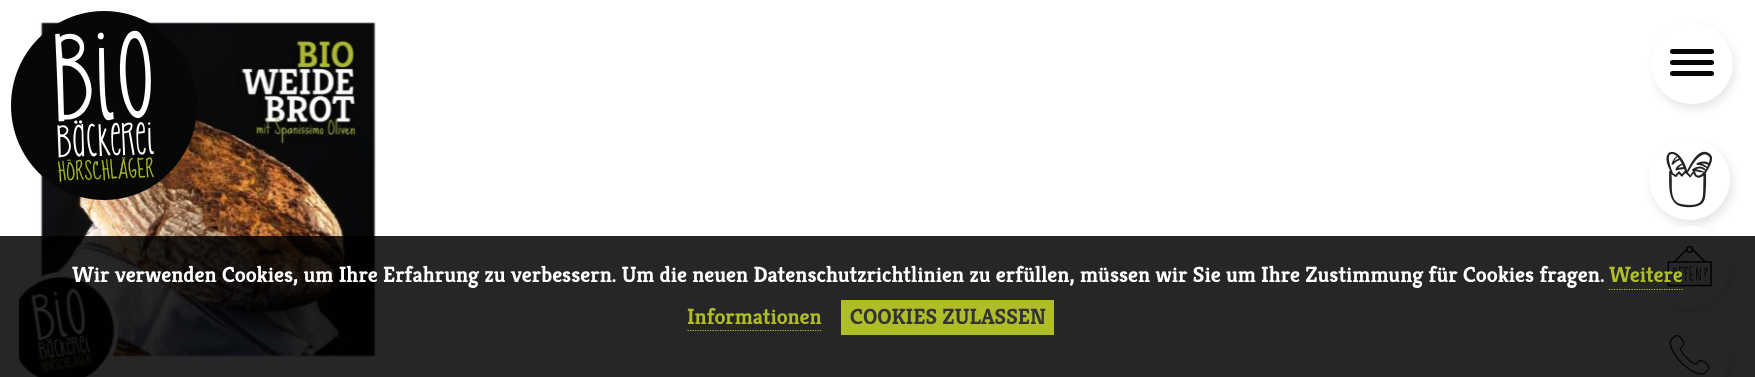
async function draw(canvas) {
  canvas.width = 1755
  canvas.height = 377
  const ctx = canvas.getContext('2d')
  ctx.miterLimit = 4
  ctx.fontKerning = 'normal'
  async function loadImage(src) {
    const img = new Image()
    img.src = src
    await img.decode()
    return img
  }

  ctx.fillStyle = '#fff'
  ctx.fillRect(0, 0, 1755, 377)
  ctx.drawImage(await loadImage('image1.png'), 19, 21, 357, 356)
  ctx.drawImage(await loadImage('image0.png'), 11, 11, 186, 189)
  ctx.fillStyle = '#0505051a'
  ctx.filter = 'blur(4px)'
  ctx.beginPath()
  ctx.roundRect(1654, 28, 81, 81, 40.5)
  ctx.fill()
  ctx.filter = 'none'
  ctx.fillStyle = '#fff'
  ctx.beginPath()
  ctx.roundRect(1651, 23, 82, 81, 40.5)
  ctx.fill()
  ctx.fillStyle = '#050505'
  ctx.beginPath()
  ctx.roundRect(1670, 60, 44, 5, 2.5)
  ctx.fill()
  ctx.beginPath()
  ctx.roundRect(1670, 49, 44, 5, 2.5)
  ctx.fill()
  ctx.beginPath()
  ctx.roundRect(1670, 71, 44, 5, 2.5)
  ctx.fill()
  ctx.fillStyle = '#0505051a'
  ctx.filter = 'blur(4px)'
  ctx.beginPath()
  ctx.roundRect(1651, 144, 82, 81, 40.5)
  ctx.fill()
  ctx.filter = 'none'
  ctx.fillStyle = '#fff'
  ctx.beginPath()
  ctx.arc(1689.5, 179.5, 40.5, 0, 2 * Math.PI)
  ctx.fill()
  ctx.drawImage(await loadImage('image2.png'), 1666, 151, 46, 57)
  ctx.fillStyle = '#0505051a'
  ctx.filter = 'blur(4px)'
  ctx.beginPath()
  ctx.roundRect(1651, 231, 82, 82, 41)
  ctx.fill()
  ctx.filter = 'none'
  ctx.fillStyle = '#fff'
  ctx.beginPath()
  ctx.roundRect(1649, 226, 81, 82, 40.5)
  ctx.fill()
  ctx.drawImage(await loadImage('image3.png'), 1667, 245, 45, 42)
  ctx.fillStyle = '#0505051a'
  ctx.filter = 'blur(4px)'
  ctx.beginPath()
  ctx.roundRect(1651, 319, 82, 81, 40.5)
  ctx.fill()
  ctx.filter = 'none'
  ctx.fillStyle = '#fff'
  ctx.beginPath()
  ctx.arc(1689.5, 354.5, 40.5, 0, 2 * Math.PI)
  ctx.fill()
  ctx.drawImage(await loadImage('image4.png'), 1669, 335, 41, 40)
  ctx.fillStyle = '#000000d9'
  ctx.fillRect(0, 236, 1755, 141)
  ctx.font = 'bold 22px Kreon'
  ctx.fillStyle = '#fff'
  ctx.fillText('Wir verwenden Cookies, um Ihre Erfahrung zu verbessern. Um die neuen Datenschutzrichtlinien zu erfüllen, müssen wir Sie um Ihre Zustimmung für Cookies fragen.', 72, 282)
  ctx.fillStyle = '#afbd29'
  ctx.fillText('Weitere', 1609, 282)
  ctx.beginPath()
  ctx.moveTo(1609, 289.5)
  ctx.lineTo(1684, 289.5)
  ctx.strokeStyle = '#afbd29'
  ctx.lineWidth = 1.2
  ctx.setLineDash([1.25, 1.25])
  ctx.stroke()
  ctx.fillText('Informationen', 687, 324)
  ctx.beginPath()
  ctx.moveTo(687.5, 330.5)
  ctx.lineTo(822.5, 330.5)
  ctx.stroke()
  ctx.fillRect(841, 300, 213, 35)
  ctx.fillStyle = '#333'
  ctx.fillText('COOKIES ZULASSEN', 850, 324)
}

draw(document.querySelector('canvas'))
